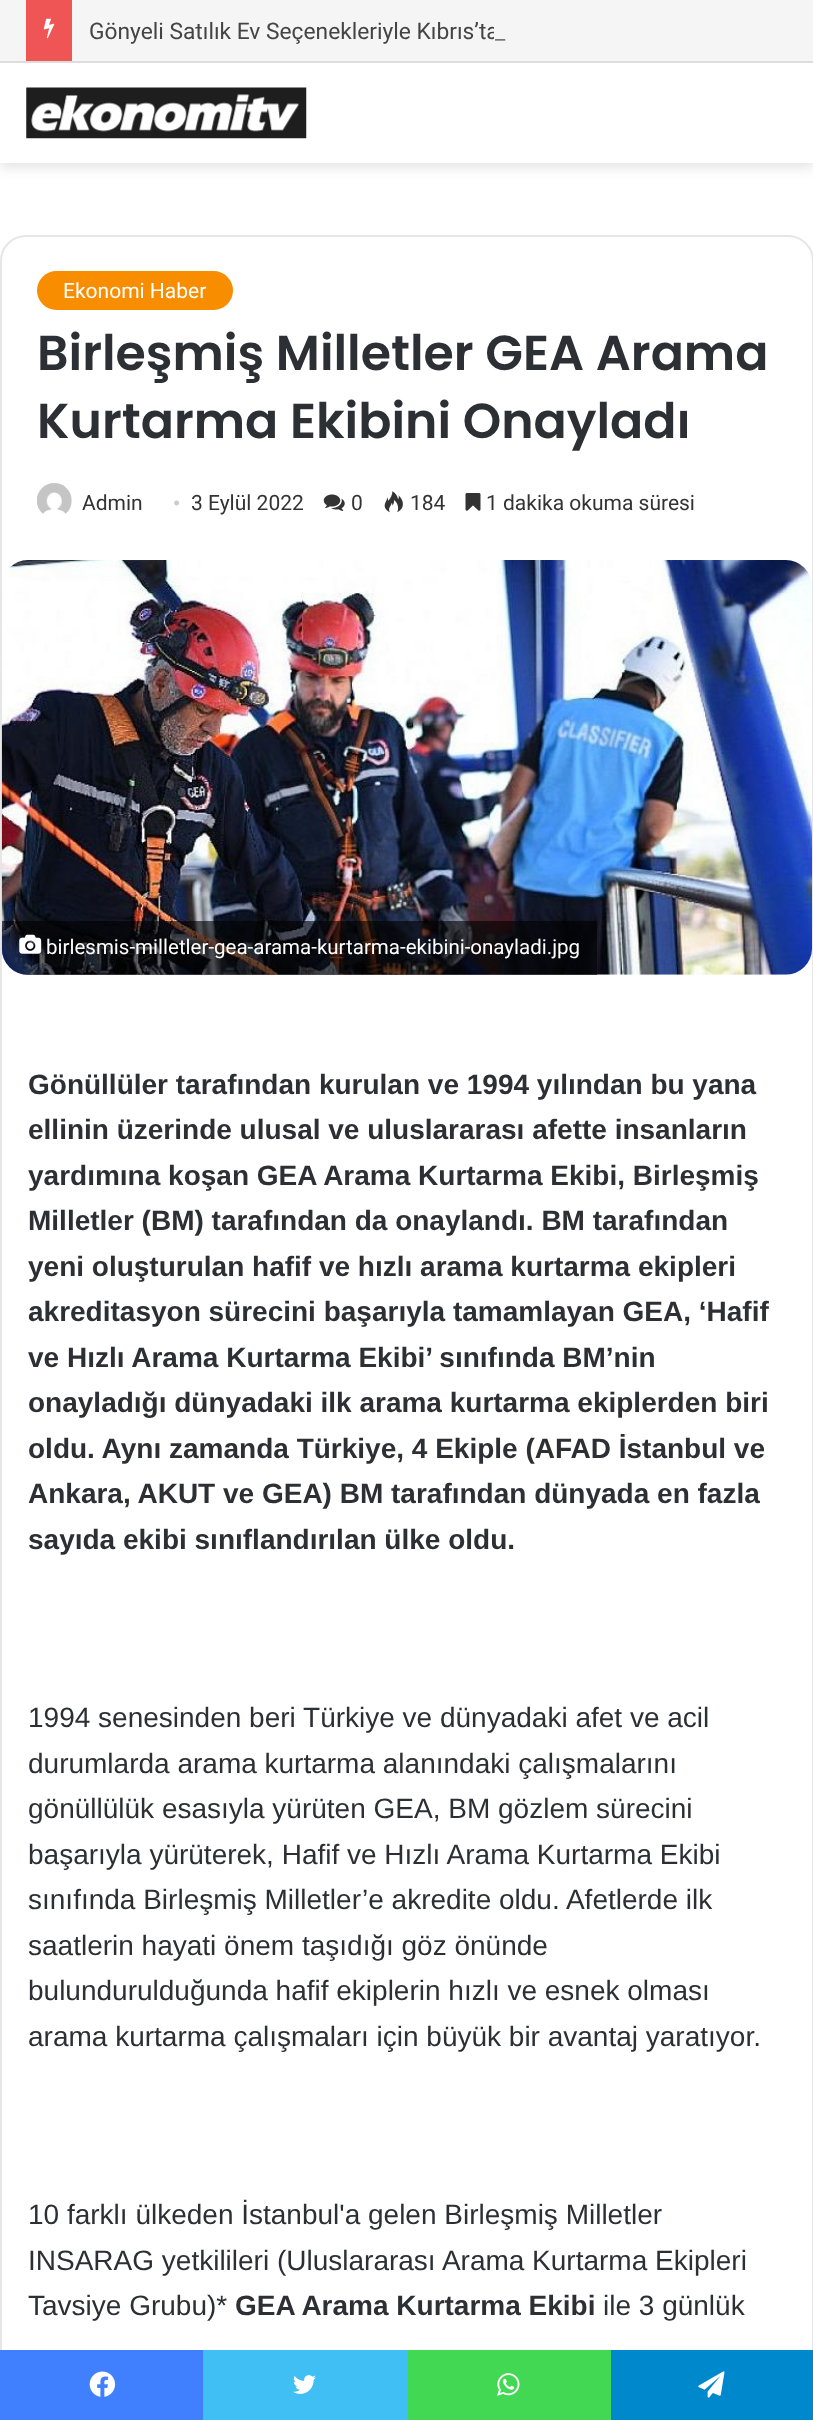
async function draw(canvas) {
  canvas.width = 813
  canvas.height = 2420
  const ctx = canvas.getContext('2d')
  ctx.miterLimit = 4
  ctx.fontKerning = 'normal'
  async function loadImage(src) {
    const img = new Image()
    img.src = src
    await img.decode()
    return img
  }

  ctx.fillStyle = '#fff'
  ctx.fillRect(0, 0, 813, 2420)
  ctx.fillStyle = '#0000001a'
  ctx.filter = 'blur(6px)'
  ctx.beginPath()
  ctx.rect(0, 68, 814, 100)
  ctx.fill()
  ctx.filter = 'none'
  ctx.fillStyle = '#f5f5f5'
  ctx.fillRect(0, 0, 813, 61)
  ctx.fillStyle = '#ddd'
  ctx.fillRect(0, 61, 813, 2)
  ctx.fillStyle = '#f05555'
  ctx.fillRect(26, 0, 46, 61)
  ctx.drawImage(await loadImage('image0.png'), 43, 18, 12, 21)
  ctx.font = '22.75px Roboto'
  ctx.fillStyle = '#444'
  ctx.fillText('Gönyeli Satılık Ev Seçenekleriyle Kıbrıs’ta', 89, 39)
  ctx.fillStyle = '#f5f5f5'
  ctx.fillRect(494, 26, 4, 13)
  ctx.fillStyle = '#777'
  ctx.fillText('_', 495, 39)
  ctx.fillStyle = '#fff'
  ctx.fillRect(0, 63, 813, 100)
  ctx.drawImage(await loadImage('image1.png'), 26, 87, 281, 52)
  ctx.beginPath()
  ctx.roundRect(1, 236, 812, 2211, 25)
  ctx.strokeStyle = '#e6e6e6'
  ctx.lineWidth = 2
  ctx.stroke()
  ctx.fillStyle = '#f98d00'
  ctx.beginPath()
  ctx.roundRect(37, 271, 196, 39, 19.5)
  ctx.fill()
  ctx.font = '21px Roboto'
  ctx.fillStyle = '#fff'
  ctx.fillText('Ekonomi Haber', 63, 298)
  ctx.font = '600 49px Poppins'
  ctx.fillStyle = '#2c2f34'
  ctx.fillText('Birleşmiş Milletler GEA Arama', 37, 370)
  ctx.fillText('Kurtarma Ekibini Onayladı', 37, 438)
  ctx.drawImage(await loadImage('image2.png'), 37, 483, 35, 31)
  ctx.font = '21px Roboto'
  ctx.fillStyle = '#333'
  ctx.fillText('Admin', 82, 510)
  ctx.font = '21px Liberation Serif'
  ctx.fillStyle = '#ccc'
  ctx.fillText('•', 173, 510)
  ctx.font = '21px Roboto'
  ctx.fillStyle = '#333'
  ctx.fillText('3 Eylül 2022', 191, 510)
  ctx.drawImage(await loadImage('image3.png'), 323, 494, 22, 17)
  ctx.fillText('0', 351, 510)
  ctx.drawImage(await loadImage('image4.png'), 384, 491, 19, 22)
  ctx.fillText('184', 410, 510)
  ctx.drawImage(await loadImage('image5.png'), 465, 493, 16, 18)
  ctx.fillText('1 dakika okuma süresi', 486, 510)
  ctx.drawImage(await loadImage('image6.png'), 1, 560, 811, 415)
  ctx.fillStyle = '#00000099'
  ctx.beginPath()
  ctx.roundRect(2, 921, 595, 54, [0, 0, 0, 26])
  ctx.fill()
  ctx.drawImage(await loadImage('image7.png'), 19, 934, 23, 20)
  ctx.font = '20.5px Roboto'
  ctx.fillStyle = '#fff'
  ctx.fillText('birlesmis-milletler-gea-arama-kurtarma-ekibini-onayladi.jpg', 46, 954)
  ctx.font = 'bold 28px Liberation Sans'
  ctx.fillStyle = '#2c2f34'
  ctx.fillText('Gönüllüler tarafından kurulan ve 1994 yılından bu yana', 28, 1094)
  ctx.fillText('ellinin üzerinde ulusal ve uluslararası afette insanların', 28, 1139)
  ctx.fillText('yardımına koşan GEA Arama Kurtarma Ekibi, Birleşmiş', 28, 1185)
  ctx.fillText('Milletler (BM) tarafından da onaylandı. BM tarafından', 28, 1230)
  ctx.fillText('yeni oluşturulan hafif ve hızlı arama kurtarma ekipleri', 28, 1276)
  ctx.fillText('akreditasyon sürecini başarıyla tamamlayan GEA, ‘Hafif', 28, 1321)
  ctx.fillText('ve Hızlı Arama Kurtarma Ekibi’ sınıfında BM’nin', 28, 1367)
  ctx.fillText('onayladığı dünyadaki ilk arama kurtarma ekiplerden biri', 28, 1412)
  ctx.fillText('oldu. Aynı zamanda Türkiye, 4 Ekiple (AFAD İstanbul ve', 28, 1458)
  ctx.fillText('Ankara, AKUT ve GEA) BM tarafından dünyada en fazla', 28, 1503)
  ctx.fillText('sayıda ekibi sınıflandırılan ülke oldu.', 28, 1549)
  ctx.font = '28px Liberation Sans'
  ctx.fillText('1994 senesinden beri Türkiye ve dünyadaki afet ve acil', 28, 1727)
  ctx.fillText('durumlarda arama kurtarma alanındaki çalışmalarını', 28, 1773)
  ctx.fillText('gönüllülük esasıyla yürüten GEA, BM gözlem sürecini', 28, 1818)
  ctx.fillText('başarıyla yürüterek, Hafif ve Hızlı Arama Kurtarma Ekibi', 28, 1864)
  ctx.fillText('sınıfında Birleşmiş Milletler’e akredite oldu. Afetlerde ilk', 28, 1909)
  ctx.fillText('saatlerin hayati önem taşıdığı göz önünde', 28, 1955)
  ctx.fillText('bulundurulduğunda hafif ekiplerin hızlı ve esnek olması', 28, 2000)
  ctx.fillText('arama kurtarma çalışmaları için büyük bir avantaj yaratıyor.', 28, 2046)
  ctx.fillText('10 farklı ülkeden İstanbul\'a gelen Birleşmiş Milletler', 28, 2224)
  ctx.fillText('INSARAG yetkilileri (Uluslararası Arama Kurtarma Ekipleri', 28, 2270)
  ctx.fillText('Tavsiye Grubu)*', 28, 2315)
  ctx.font = 'bold 28px Liberation Sans'
  ctx.fillText('GEA Arama Kurtarma Ekibi', 235, 2315)
  ctx.font = '28px Liberation Sans'
  ctx.fillText('ile 3 günlük', 603, 2315)
  ctx.fillStyle = '#4080ff'
  ctx.fillRect(0, 2350, 203, 70)
  ctx.drawImage(await loadImage('image8.png'), 89, 2371, 27, 26)
  ctx.fillStyle = '#40bff5'
  ctx.fillRect(203, 2350, 205, 70)
  ctx.drawImage(await loadImage('image9.png'), 293, 2375, 23, 19)
  ctx.fillStyle = '#43d854'
  ctx.fillRect(408, 2350, 203, 70)
  ctx.drawImage(await loadImage('image10.png'), 497, 2373, 23, 23)
  ctx.fillStyle = '#08c'
  ctx.fillRect(611, 2350, 202, 70)
  ctx.drawImage(await loadImage('image11.png'), 698, 2371, 27, 27)
}

draw(document.querySelector('canvas'))
